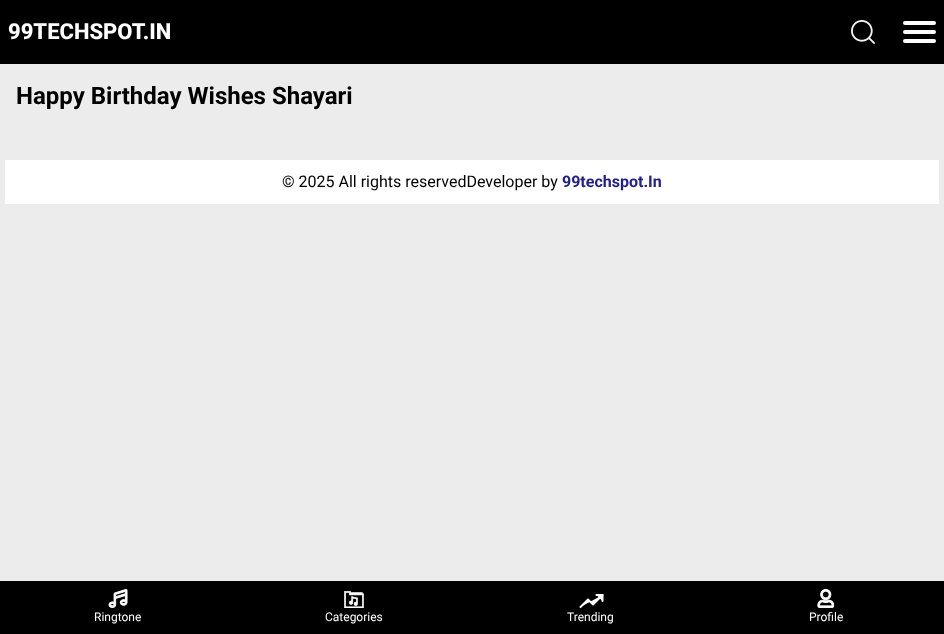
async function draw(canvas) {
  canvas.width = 944
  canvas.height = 634
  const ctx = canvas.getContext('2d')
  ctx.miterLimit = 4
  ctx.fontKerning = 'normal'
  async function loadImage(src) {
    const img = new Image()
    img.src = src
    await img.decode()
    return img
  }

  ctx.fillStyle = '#ececec'
  ctx.fillRect(0, 0, 944, 634)
  ctx.fillStyle = '#000'
  ctx.fillRect(0, 0, 944, 64)
  ctx.font = '800 22px Roboto'
  ctx.fillStyle = '#fff'
  ctx.fillText('99TECHSPOT.IN', 8, 39)
  ctx.drawImage(await loadImage('image0.png'), 851, 20, 24, 24)
  ctx.beginPath()
  ctx.roundRect(903, 21, 33, 4, 2)
  ctx.fill()
  ctx.beginPath()
  ctx.roundRect(903, 30, 33, 4, 2)
  ctx.fill()
  ctx.beginPath()
  ctx.roundRect(903, 39, 33, 4, 2)
  ctx.fill()
  ctx.font = 'bold 24px Roboto'
  ctx.fillStyle = '#000'
  ctx.fillText('Happy Birthday Wishes Shayari', 16, 104)
  ctx.fillStyle = '#fff'
  ctx.fillRect(5, 160, 934, 44)
  ctx.font = '16px Roboto'
  ctx.fillStyle = '#000'
  ctx.fillText('© 2025 All rights reservedDeveloper by', 282, 187)
  ctx.font = 'bold 16px Roboto'
  ctx.fillStyle = '#22208e'
  ctx.fillText('99techspot.In', 562, 187)
  ctx.fillStyle = '#808080'
  ctx.filter = 'blur(0.5px)'
  ctx.beginPath()
  ctx.rect(0, 581, 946, 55)
  ctx.fill()
  ctx.filter = 'none'
  ctx.fillStyle = '#000'
  ctx.fillRect(0, 581, 944, 53)
  ctx.drawImage(await loadImage('image1.png'), 108, 589, 20, 19)
  ctx.font = '12px Roboto'
  ctx.fillStyle = '#fff'
  ctx.fillText('Ringtone', 94, 621)
  ctx.drawImage(await loadImage('image2.png'), 344, 591, 20, 17)
  ctx.fillText('Categories', 325, 621)
  ctx.drawImage(await loadImage('image3.png'), 579, 594, 25, 14)
  ctx.fillText('Trending', 567, 621)
  ctx.drawImage(await loadImage('image4.png'), 817, 589, 18, 19)
  ctx.fillText('Profile', 809, 621)
}

draw(document.querySelector('canvas'))
